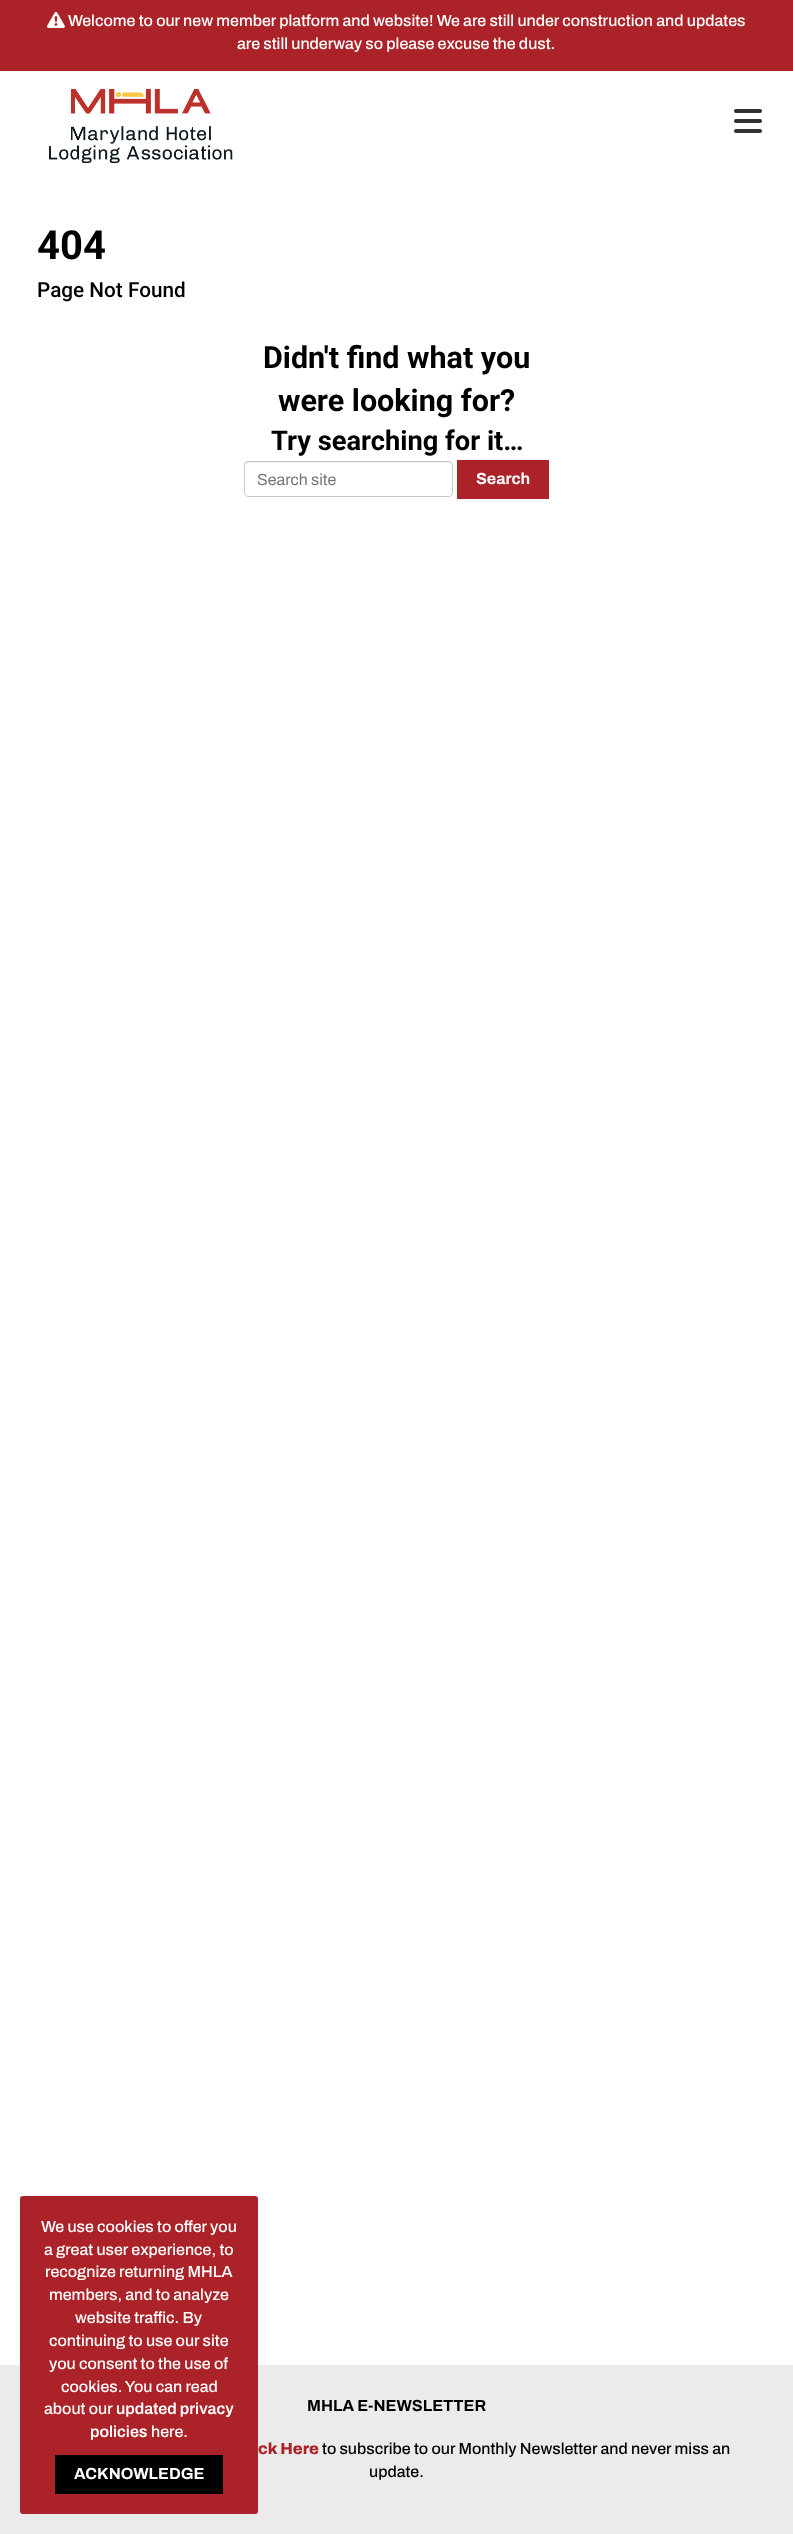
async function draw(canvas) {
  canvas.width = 793
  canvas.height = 2534
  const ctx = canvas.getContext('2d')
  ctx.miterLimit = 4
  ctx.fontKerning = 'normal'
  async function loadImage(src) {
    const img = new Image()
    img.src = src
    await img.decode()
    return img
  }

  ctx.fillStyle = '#fff'
  ctx.fillRect(0, 0, 793, 2534)
  ctx.fillStyle = '#ab2328'
  ctx.fillRect(0, 0, 793, 71)
  ctx.drawImage(await loadImage('image0.png'), 47, 12, 18, 16)
  ctx.font = '500 16px Archivo'
  ctx.fillStyle = '#fff'
  ctx.fillText('W️elcome to our new member platform and website! We are still under construction and updates', 68, 26)
  ctx.fillText('are still underway so please excuse the dust.', 237, 49)
  ctx.drawImage(await loadImage('image1.png'), 49, 89, 184, 74)
  ctx.drawImage(await loadImage('image2.png'), 734, 109, 28, 24)
  ctx.font = 'bold 40px Roboto'
  ctx.fillStyle = '#000'
  ctx.fillText('404', 37, 259)
  ctx.font = '500 20.75px Roboto'
  ctx.fillText('Page Not Found', 37, 297)
  ctx.font = 'bold 30.5px Roboto'
  ctx.fillText('Didn\'t find what you', 263, 368)
  ctx.fillText('were looking for?', 278, 411)
  ctx.font = 'bold 27.25px Roboto'
  ctx.fillText('Try searching for it…', 271, 450)
  ctx.fillStyle = '#ececec'
  ctx.beginPath()
  ctx.moveTo(248, 463)
  ctx.lineTo(449, 463)
  ctx.bezierCurveTo(451, 463, 452, 464, 452, 466)
  ctx.bezierCurveTo(452, 464, 451, 462, 449, 462)
  ctx.lineTo(247, 462)
  ctx.bezierCurveTo(245, 463, 245, 464, 245, 466)
  ctx.bezierCurveTo(245, 464, 246, 463, 248, 463)
  ctx.closePath()
  ctx.fill()
  ctx.beginPath()
  ctx.roundRect(244.5, 461.5, 208, 35, 3.5)
  ctx.strokeStyle = '#ccc'
  ctx.stroke()
  ctx.font = '16px Archivo'
  ctx.fillStyle = '#757575'
  ctx.fillText('Search site', 257, 485)
  ctx.fillStyle = '#ab2328'
  ctx.fillRect(457, 460, 92, 39)
  ctx.font = 'bold 16px Archivo'
  ctx.fillStyle = '#fff'
  ctx.fillText('Search', 476, 484)
  ctx.fillStyle = '#ebebeb'
  ctx.fillRect(0, 2365, 793, 169)
  ctx.fillStyle = '#ab2328'
  ctx.beginPath()
  ctx.roundRect(20, 2196, 238, 318, 3)
  ctx.fill()
  ctx.font = '500 16px Archivo'
  ctx.fillStyle = '#fff'
  ctx.fillText('We use cookies to offer you', 41, 2232)
  ctx.fillText('a great user experience, to', 44, 2255)
  ctx.fillText('recognize returning MHLA', 45, 2277)
  ctx.fillText('members, and to analyze', 49, 2300)
  ctx.fillText('website traffic. By', 75, 2323)
  ctx.fillText('continuing to use our site', 49, 2346)
  ctx.fillText('you consent to the use of', 49, 2369)
  ctx.fillText('cookies. You can read', 61, 2392)
  ctx.fillText('about our', 44, 2414)
  ctx.font = '600 16px Archivo'
  ctx.fillText('updated privacy', 116, 2414)
  ctx.fillText('policies', 90, 2437)
  ctx.font = '500 16px Archivo'
  ctx.fillText('here.', 151, 2437)
  ctx.fillStyle = '#000'
  ctx.fillRect(55, 2455, 168, 39)
  ctx.font = 'bold 16px Archivo'
  ctx.fillStyle = '#fff'
  ctx.fillText('ACKNOWLEDGE', 74, 2479)
  ctx.fillStyle = '#000'
  ctx.fillText('MHLA E-NEWSLETTER', 307, 2411)
  ctx.font = '800 16px Archivo'
  ctx.fillStyle = '#ab2328'
  ctx.fillText('ck Here', 258, 2454)
  ctx.font = '500 16px Archivo'
  ctx.fillStyle = '#000'
  ctx.fillText('to subscribe to our Monthly Newsletter and never miss an', 322, 2454)
  ctx.fillText('update.', 369, 2477)
}

draw(document.querySelector('canvas'))
